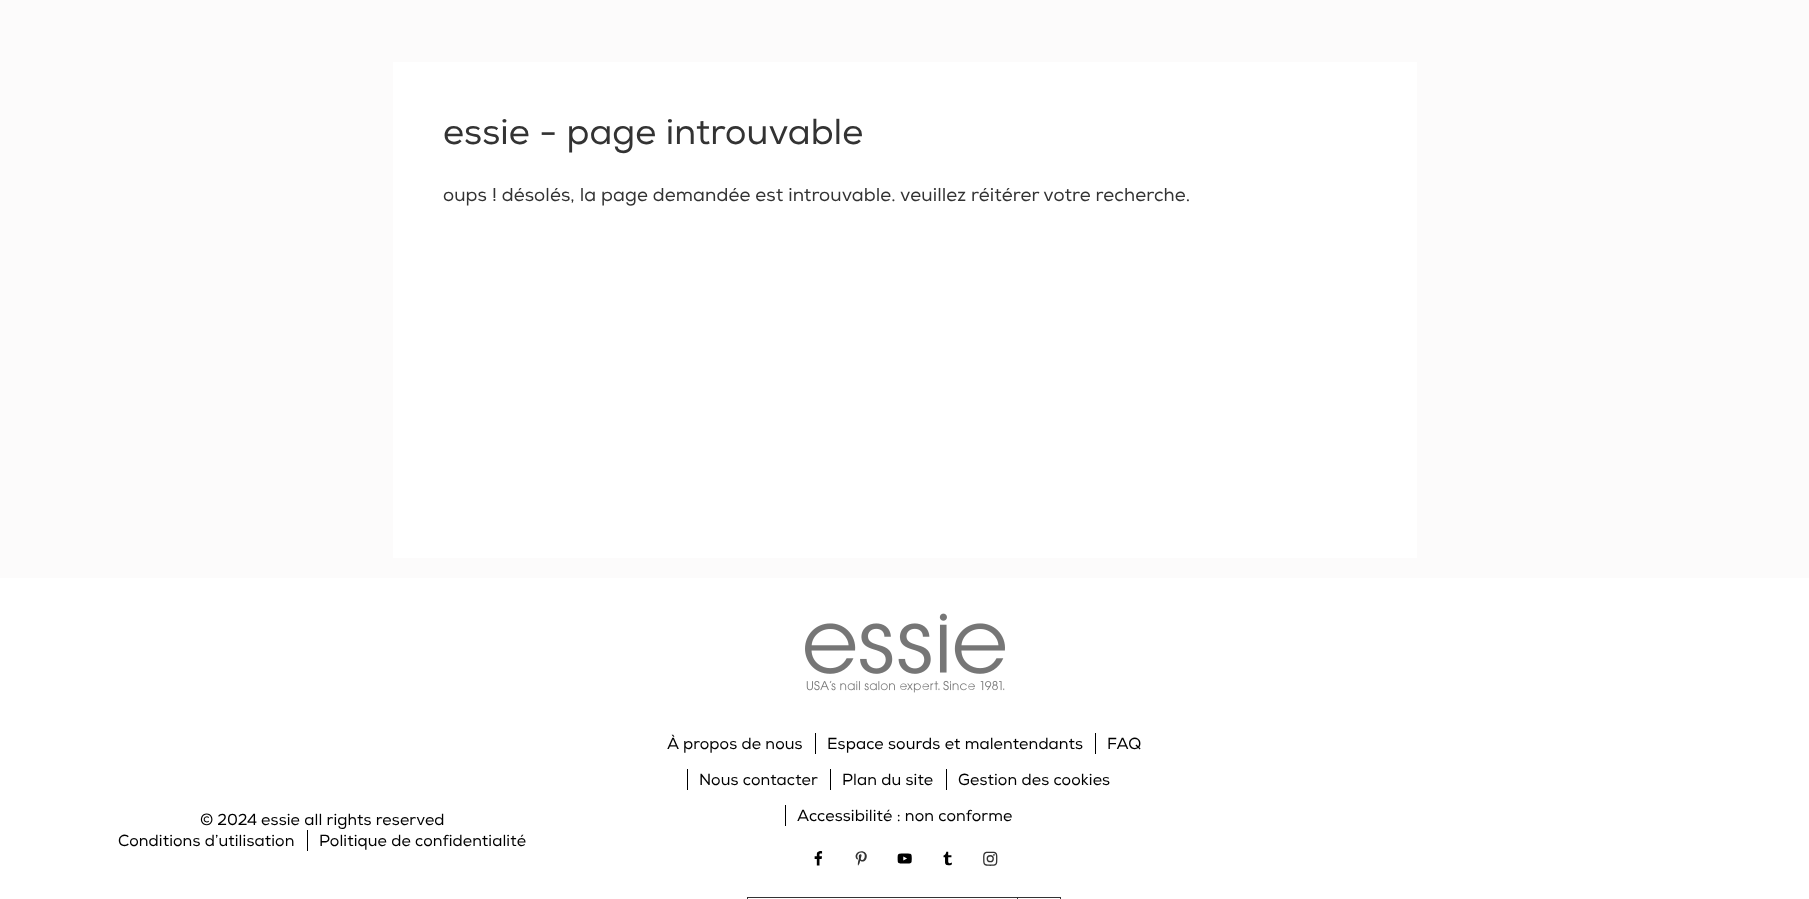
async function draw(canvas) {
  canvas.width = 1809
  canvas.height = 899
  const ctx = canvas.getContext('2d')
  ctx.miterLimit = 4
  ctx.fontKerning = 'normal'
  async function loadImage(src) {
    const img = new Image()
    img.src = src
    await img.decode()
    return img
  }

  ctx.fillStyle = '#fcfbfb'
  ctx.fillRect(0, 0, 1809, 899)
  ctx.fillStyle = '#fff'
  ctx.fillRect(393, 62, 1024, 496)
  ctx.letterSpacing = '0.1px'
  ctx.font = '36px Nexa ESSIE'
  ctx.fillStyle = '#333'
  ctx.fillText('essie - page introuvable', 443, 144)
  ctx.font = '18.7px Nexa ESSIE'
  ctx.fillText('oups ! désolés, la page demandée est introuvable. veuillez réitérer votre recherche.', 443, 201)
  ctx.fillStyle = '#fff'
  ctx.fillRect(0, 578, 1809, 321)
  ctx.drawImage(await loadImage('image0.png'), 805, 613, 200, 80)
  ctx.font = '16px Nexa ESSIE'
  ctx.fillStyle = '#000'
  ctx.fillText('À propos de nous', 667, 749)
  ctx.fillRect(815, 733, 1, 21)
  ctx.fillText('Espace sourds et malentendants', 827, 749)
  ctx.fillRect(1095, 733, 1, 21)
  ctx.fillText('FAQ', 1107, 749)
  ctx.fillRect(687, 769, 1, 21)
  ctx.fillText('Nous contacter', 699, 785)
  ctx.fillRect(830, 769, 1, 21)
  ctx.fillText('Plan du site', 842, 785)
  ctx.fillRect(946, 769, 1, 21)
  ctx.fillText('Gestion des cookies', 958, 785)
  ctx.fillRect(785, 805, 1, 21)
  ctx.fillText('Accessibilité : non conforme', 797, 821)
  ctx.drawImage(await loadImage('image1.png'), 814, 851, 9, 15)
  ctx.drawImage(await loadImage('image2.png'), 855, 851, 12, 15)
  ctx.drawImage(await loadImage('image3.png'), 897, 853, 15, 11)
  ctx.drawImage(await loadImage('image4.png'), 943, 851, 9, 15)
  ctx.drawImage(await loadImage('image5.png'), 983, 851, 15, 15)
  ctx.strokeStyle = '#333'
  ctx.strokeRect(747.5, 897.5, 313, 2)
  ctx.fillStyle = '#333'
  ctx.fillRect(1017, 897, 1, 2)
  ctx.fillStyle = '#000'
  ctx.fillText('© 2024 essie all rights reserved', 200, 825)
  ctx.fillText('Conditions d’utilisation', 118, 846)
  ctx.fillRect(307, 830, 1, 21)
  ctx.fillText('Politique de confidentialité', 319, 846)
}

draw(document.querySelector('canvas'))
